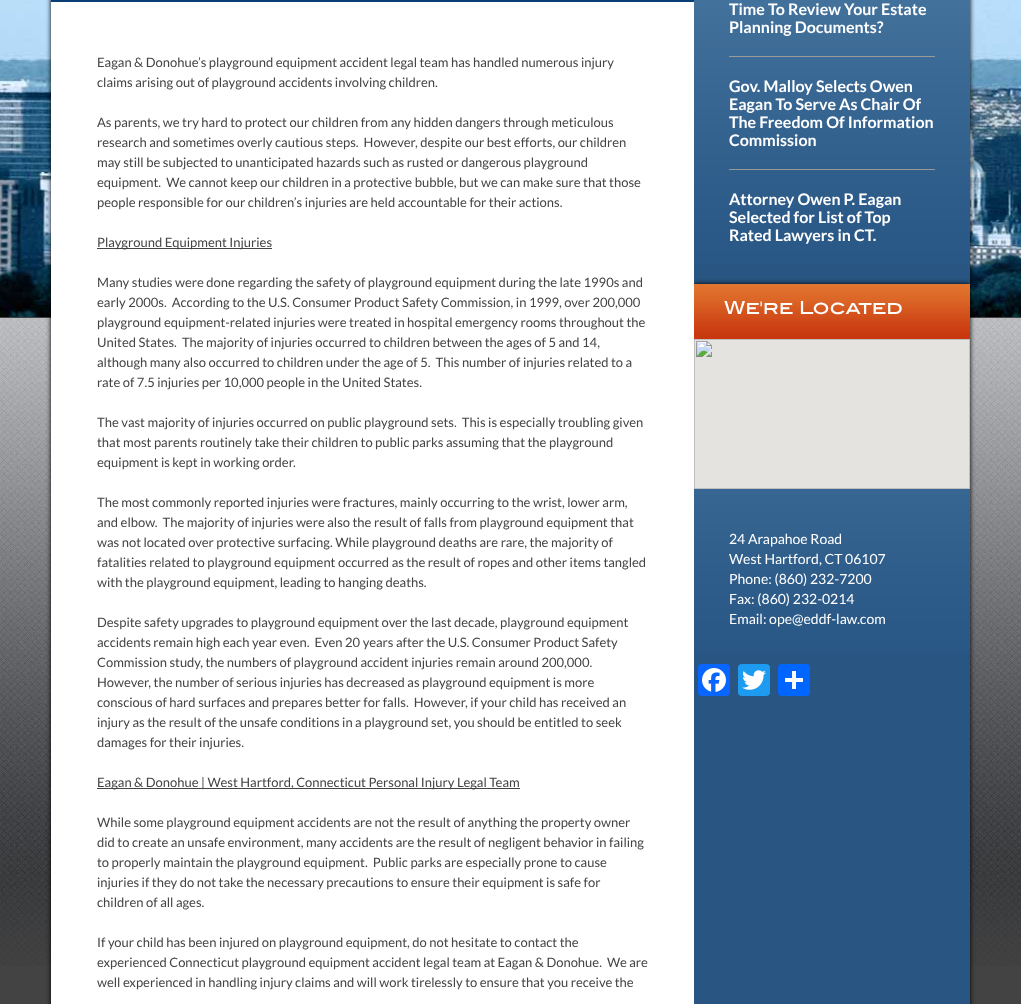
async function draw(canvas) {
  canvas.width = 1021
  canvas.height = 1004
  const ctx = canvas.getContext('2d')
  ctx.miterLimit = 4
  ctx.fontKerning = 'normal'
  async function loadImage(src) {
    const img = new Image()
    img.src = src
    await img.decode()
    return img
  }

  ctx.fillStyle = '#434343'
  ctx.fillRect(0, 0, 1021, 1004)
  ctx.drawImage(await loadImage('image0.png'), 0, 318, 1021, 648)
  ctx.drawImage(await loadImage('image1.png'), 0, 0, 1021, 317)
  ctx.fillStyle = '#000'
  ctx.filter = 'blur(2.5px)'
  ctx.beginPath()
  ctx.rect(51, -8, 919, 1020)
  ctx.fill()
  ctx.filter = 'none'
  ctx.fillStyle = '#285581'
  ctx.fillRect(694, 264, 276, 740)
  ctx.fillStyle = '#fff'
  ctx.fillRect(51, 2, 643, 1002)
  ctx.fillStyle = '#083e75'
  ctx.fillRect(51, 0, 643, 2)
  ctx.font = '13px Lato'
  ctx.fillStyle = '#444'
  ctx.fillText('Eagan & Donohue’s playground equipment accident legal team has handled numerous injury', 97, 67)
  ctx.fillText('claims arising out of playground accidents involving children.', 97, 87)
  ctx.fillText('As parents, we try hard to protect our children from any hidden dangers through meticulous', 97, 127)
  ctx.fillText('research and sometimes overly cautious steps.  However, despite our best efforts, our children', 97, 147)
  ctx.fillText('may still be subjected to unanticipated hazards such as rusted or dangerous playground', 97, 167)
  ctx.fillText('equipment.  We cannot keep our children in a protective bubble, but we can make sure that those', 97, 187)
  ctx.fillText('people responsible for our children’s injuries are held accountable for their actions.', 97, 207)
  ctx.fillRect(97, 248, 175, 1)
  ctx.fillText('Playground Equipment Injuries', 97, 247)
  ctx.fillText('Many studies were done regarding the safety of playground equipment during the late 1990s and', 97, 287)
  ctx.fillText('early 2000s.  According to the U.S. Consumer Product Safety Commission, in 1999, over 200,000', 97, 307)
  ctx.fillText('playground equipment-related injuries were treated in hospital emergency rooms throughout the', 97, 327)
  ctx.fillText('United States.  The majority of injuries occurred to children between the ages of 5 and 14,', 97, 347)
  ctx.fillText('although many also occurred to children under the age of 5.  This number of injuries related to a', 97, 367)
  ctx.fillText('rate of 7.5 injuries per 10,000 people in the United States.', 97, 387)
  ctx.fillText('The vast majority of injuries occurred on public playground sets.  This is especially troubling given', 97, 427)
  ctx.fillText('that most parents routinely take their children to public parks assuming that the playground', 97, 447)
  ctx.fillText('equipment is kept in working order.', 97, 467)
  ctx.fillText('The most commonly reported injuries were fractures, mainly occurring to the wrist, lower arm,', 97, 507)
  ctx.fillText('and elbow.  The majority of injuries were also the result of falls from playground equipment that', 97, 527)
  ctx.fillText('was not located over protective surfacing. While playground deaths are rare, the majority of', 97, 547)
  ctx.fillText('fatalities related to playground equipment occurred as the result of ropes and other items tangled', 97, 567)
  ctx.fillText('with the playground equipment, leading to hanging deaths.', 97, 587)
  ctx.fillText('Despite safety upgrades to playground equipment over the last decade, playground equipment', 97, 627)
  ctx.fillText('accidents remain high each year even.  Even 20 years after the U.S. Consumer Product Safety', 97, 647)
  ctx.fillText('Commission study, the numbers of playground accident injuries remain around 200,000.', 97, 667)
  ctx.fillText('However, the number of serious injuries has decreased as playground equipment is more', 97, 687)
  ctx.fillText('conscious of hard surfaces and prepares better for falls.  However, if your child has received an', 97, 707)
  ctx.fillText('injury as the result of the unsafe conditions in a playground set, you should be entitled to seek', 97, 727)
  ctx.fillText('damages for their injuries.', 97, 747)
  ctx.fillRect(97, 788, 423, 1)
  ctx.fillText('Eagan & Donohue | West Hartford, Connecticut Personal Injury Legal Team', 97, 787)
  ctx.fillText('While some playground equipment accidents are not the result of anything the property owner', 97, 827)
  ctx.fillText('did to create an unsafe environment, many accidents are the result of negligent behavior in failing', 97, 847)
  ctx.fillText('to properly maintain the playground equipment.  Public parks are especially prone to cause', 97, 867)
  ctx.fillText('injuries if they do not take the necessary precautions to ensure their equipment is safe for', 97, 887)
  ctx.fillText('children of all ages.', 97, 907)
  ctx.fillText('If your child has been injured on playground equipment, do not hesitate to contact the', 97, 947)
  ctx.fillText('experienced Connecticut playground equipment accident legal team at Eagan & Donohue.  We are', 97, 967)
  ctx.fillText('well experienced in handling injury claims and will work tirelessly to ensure that you receive the', 97, 987)
  ctx.drawImage(await loadImage('image2.png'), 694, 0, 276, 264)
  ctx.fillStyle = '#999'
  ctx.fillRect(729, 56, 206, 1)
  ctx.font = 'bold 16px Lato'
  ctx.fillStyle = '#fff'
  ctx.fillText('Time To Review Your Estate', 729, 15)
  ctx.fillText('Planning Documents?', 729, 33)
  ctx.fillStyle = '#999'
  ctx.fillRect(729, 169, 206, 1)
  ctx.fillStyle = '#fff'
  ctx.fillText('Gov. Malloy Selects Owen', 729, 92)
  ctx.fillText('Eagan To Serve As Chair Of', 729, 110)
  ctx.fillText('The Freedom Of Information', 729, 128)
  ctx.fillText('Commission', 729, 146)
  ctx.fillText('Attorney Owen P. Eagan', 729, 205)
  ctx.fillText('Selected for List of Top', 729, 223)
  ctx.fillText('Rated Lawyers in CT.', 729, 241)
  ctx.drawImage(await loadImage('image3.png'), 694, 489, 276, 163)
  ctx.save()
  ctx.beginPath()
  ctx.rect(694, 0, 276, 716)
  ctx.clip()
  ctx.fillStyle = '#000'
  ctx.filter = 'blur(2.5px)'
  ctx.beginPath()
  ctx.rect(694, 284, 276, 55)
  ctx.fill()
  ctx.filter = 'none'
  ctx.restore()
  ctx.drawImage(await loadImage('image4.png'), 694, 284, 276, 55)
  ctx.font = '500 18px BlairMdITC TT'
  ctx.fillText('We\'re Located', 724, 314)
  ctx.drawImage(await loadImage('image5.png'), 694, 339, 276, 150)
  ctx.font = '14px Lato'
  ctx.fillText('24 Arapahoe Road', 729, 544)
  ctx.fillText('West Hartford, CT 06107', 729, 564)
  ctx.fillText('Phone: (860) 232-7200', 729, 584)
  ctx.fillText('Fax: (860) 232-0214', 729, 604)
  ctx.fillText('Email: ope@eddf-law.com', 729, 624)
  ctx.fillStyle = '#0866ff'
  ctx.beginPath()
  ctx.roundRect(698, 664, 32, 32, 4)
  ctx.fill()
  ctx.drawImage(await loadImage('image6.png'), 702, 668, 24, 24)
  ctx.fillStyle = '#1d9bf0'
  ctx.beginPath()
  ctx.roundRect(738, 664, 32, 32, 4)
  ctx.fill()
  ctx.drawImage(await loadImage('image7.png'), 742, 670, 24, 20)
  ctx.fillStyle = '#0166ff'
  ctx.beginPath()
  ctx.roundRect(778, 664, 32, 32, 4)
  ctx.fill()
  ctx.fillStyle = '#fff'
  ctx.fillRect(792, 671, 4, 18)
  ctx.fillRect(785, 678, 18, 4)
}

draw(document.querySelector('canvas'))
